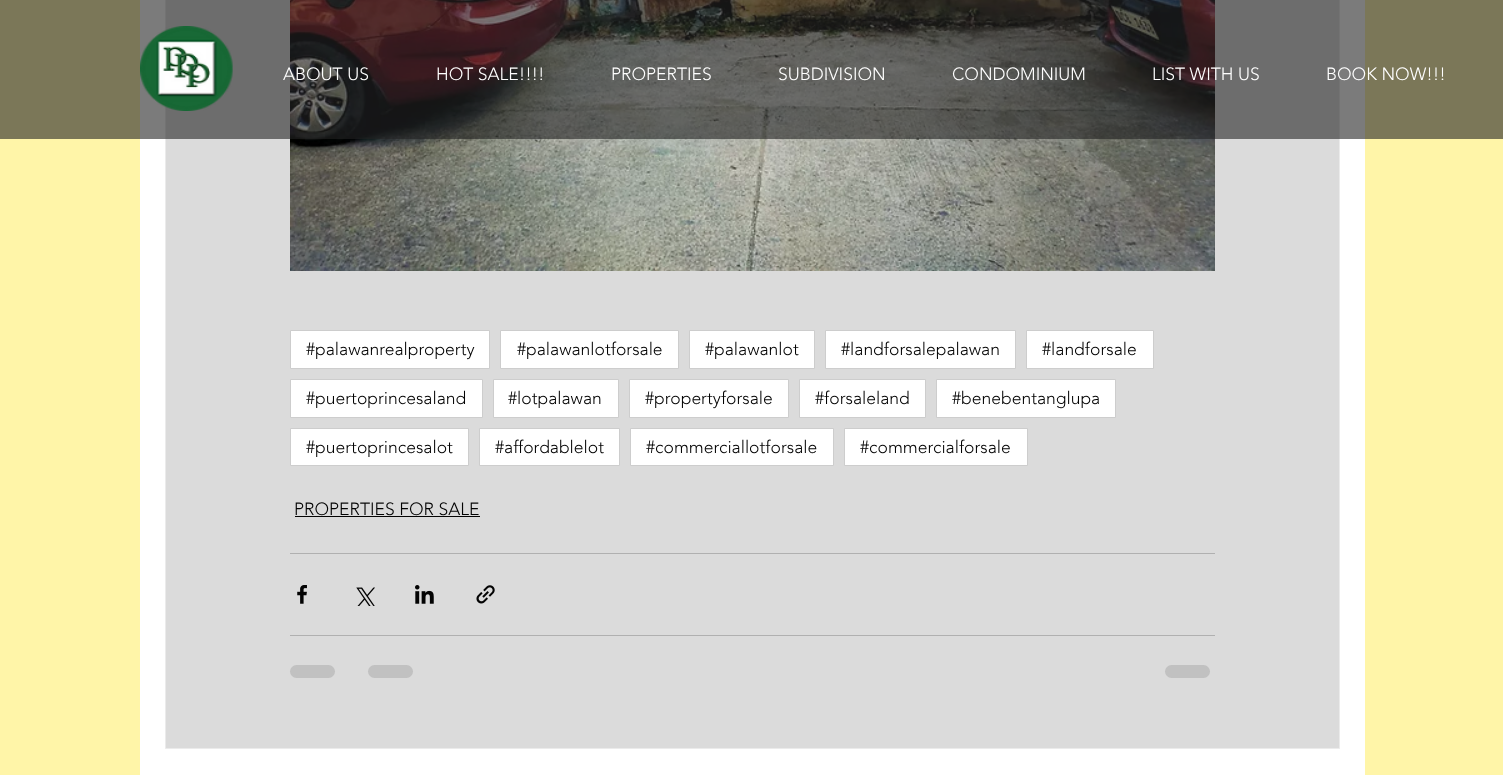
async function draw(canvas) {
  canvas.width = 1503
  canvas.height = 775
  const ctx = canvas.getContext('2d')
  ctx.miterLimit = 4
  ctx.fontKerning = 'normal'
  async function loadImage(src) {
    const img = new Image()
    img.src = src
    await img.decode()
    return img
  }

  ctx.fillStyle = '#fff5a8'
  ctx.fillRect(0, 0, 1503, 775)
  ctx.fillStyle = '#fff'
  ctx.fillRect(140, 0, 1225, 775)
  ctx.fillStyle = '#dbdbdb'
  ctx.beginPath()
  ctx.rect(165.5, -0.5, 1174, 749)
  ctx.fill()
  ctx.strokeStyle = '#ebebeb'
  ctx.stroke()
  ctx.drawImage(await loadImage('image1.png'), 290, 0, 925, 271)
  ctx.fillStyle = '#23232399'
  ctx.fillRect(0, 0, 1503, 139)
  ctx.drawImage(await loadImage('image0.png'), 140, 26, 93, 85)
  ctx.font = '300 17.5px "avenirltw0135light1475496"'
  ctx.fillStyle = '#fff'
  ctx.fillText('ABOUT US', 283, 80)
  ctx.fillText('HOT SALE!!!!', 436, 80)
  ctx.fillText('PROPERTIES', 611, 80)
  ctx.fillText('SUBDIVISION', 778, 80)
  ctx.fillText('CONDOMINIUM', 952, 80)
  ctx.fillText('LIST WITH US', 1152, 80)
  ctx.fillText('BOOK NOW!!!', 1326, 80)
  ctx.beginPath()
  ctx.rect(290.5, 330.5, 199, 38)
  ctx.fill()
  ctx.strokeStyle = '#cdcdcd'
  ctx.stroke()
  ctx.fillStyle = '#030303'
  ctx.fillText('#palawanrealproperty', 306, 355)
  ctx.fillStyle = '#fff'
  ctx.beginPath()
  ctx.rect(500.5, 330.5, 178, 38)
  ctx.fill()
  ctx.stroke()
  ctx.fillStyle = '#030303'
  ctx.fillText('#palawanlotforsale', 517, 355)
  ctx.fillStyle = '#fff'
  ctx.beginPath()
  ctx.rect(689.5, 330.5, 125, 38)
  ctx.fill()
  ctx.stroke()
  ctx.fillStyle = '#030303'
  ctx.fillText('#palawanlot', 705, 355)
  ctx.fillStyle = '#fff'
  ctx.beginPath()
  ctx.rect(825.5, 330.5, 190, 38)
  ctx.fill()
  ctx.stroke()
  ctx.fillStyle = '#030303'
  ctx.fillText('#landforsalepalawan', 841, 355)
  ctx.fillStyle = '#fff'
  ctx.beginPath()
  ctx.rect(1026.5, 330.5, 127, 38)
  ctx.fill()
  ctx.stroke()
  ctx.fillStyle = '#030303'
  ctx.fillText('#landforsale', 1042, 355)
  ctx.fillStyle = '#fff'
  ctx.beginPath()
  ctx.rect(290.5, 379.5, 192, 38)
  ctx.fill()
  ctx.stroke()
  ctx.fillStyle = '#030303'
  ctx.fillText('#puertoprincesaland', 306, 404)
  ctx.fillStyle = '#fff'
  ctx.beginPath()
  ctx.rect(493.5, 379.5, 125, 38)
  ctx.fill()
  ctx.stroke()
  ctx.fillStyle = '#030303'
  ctx.fillText('#lotpalawan', 508, 404)
  ctx.fillStyle = '#fff'
  ctx.beginPath()
  ctx.rect(629.5, 379.5, 159, 38)
  ctx.fill()
  ctx.stroke()
  ctx.fillStyle = '#030303'
  ctx.fillText('#propertyforsale', 645, 404)
  ctx.fillStyle = '#fff'
  ctx.beginPath()
  ctx.rect(799.5, 379.5, 126, 38)
  ctx.fill()
  ctx.stroke()
  ctx.fillStyle = '#030303'
  ctx.fillText('#forsaleland', 815, 404)
  ctx.fillStyle = '#fff'
  ctx.beginPath()
  ctx.rect(936.5, 379.5, 179, 38)
  ctx.fill()
  ctx.stroke()
  ctx.fillStyle = '#030303'
  ctx.fillText('#benebentanglupa', 952, 404)
  ctx.fillStyle = '#fff'
  ctx.beginPath()
  ctx.rect(290.5, 428.5, 178, 37)
  ctx.fill()
  ctx.stroke()
  ctx.fillStyle = '#030303'
  ctx.fillText('#puertoprincesalot', 306, 453)
  ctx.fillStyle = '#fff'
  ctx.beginPath()
  ctx.rect(479.5, 428.5, 140, 37)
  ctx.fill()
  ctx.stroke()
  ctx.fillStyle = '#030303'
  ctx.fillText('#affordablelot', 495, 453)
  ctx.fillStyle = '#fff'
  ctx.beginPath()
  ctx.rect(630.5, 428.5, 203, 37)
  ctx.fill()
  ctx.stroke()
  ctx.fillStyle = '#030303'
  ctx.fillText('#commerciallotforsale', 646, 453)
  ctx.fillStyle = '#fff'
  ctx.beginPath()
  ctx.rect(844.5, 428.5, 183, 37)
  ctx.fill()
  ctx.stroke()
  ctx.fillStyle = '#030303'
  ctx.fillText('#commercialforsale', 860, 453)
  ctx.fillText('PROPERTIES FOR SALE', 294, 515)
  ctx.fillRect(295, 516, 185, 1)
  ctx.fillStyle = '#b0b0b0'
  ctx.fillRect(290, 553, 925, 1)
  ctx.drawImage(await loadImage('image2.png'), 297, 585, 10, 19)
  ctx.drawImage(await loadImage('image3.png'), 356, 587, 19, 19)
  ctx.drawImage(await loadImage('image4.png'), 415, 585, 19, 19)
  ctx.drawImage(await loadImage('image5.png'), 476, 585, 19, 19)
  ctx.fillRect(290, 635, 925, 1)
  ctx.fillStyle = '#c1c1c1'
  ctx.beginPath()
  ctx.roundRect(290, 665, 45, 13, 6.5)
  ctx.fill()
  ctx.beginPath()
  ctx.roundRect(368, 665, 45, 13, 6.5)
  ctx.fill()
  ctx.beginPath()
  ctx.roundRect(1165, 665, 45, 13, 6.5)
  ctx.fill()
}

draw(document.querySelector('canvas'))
